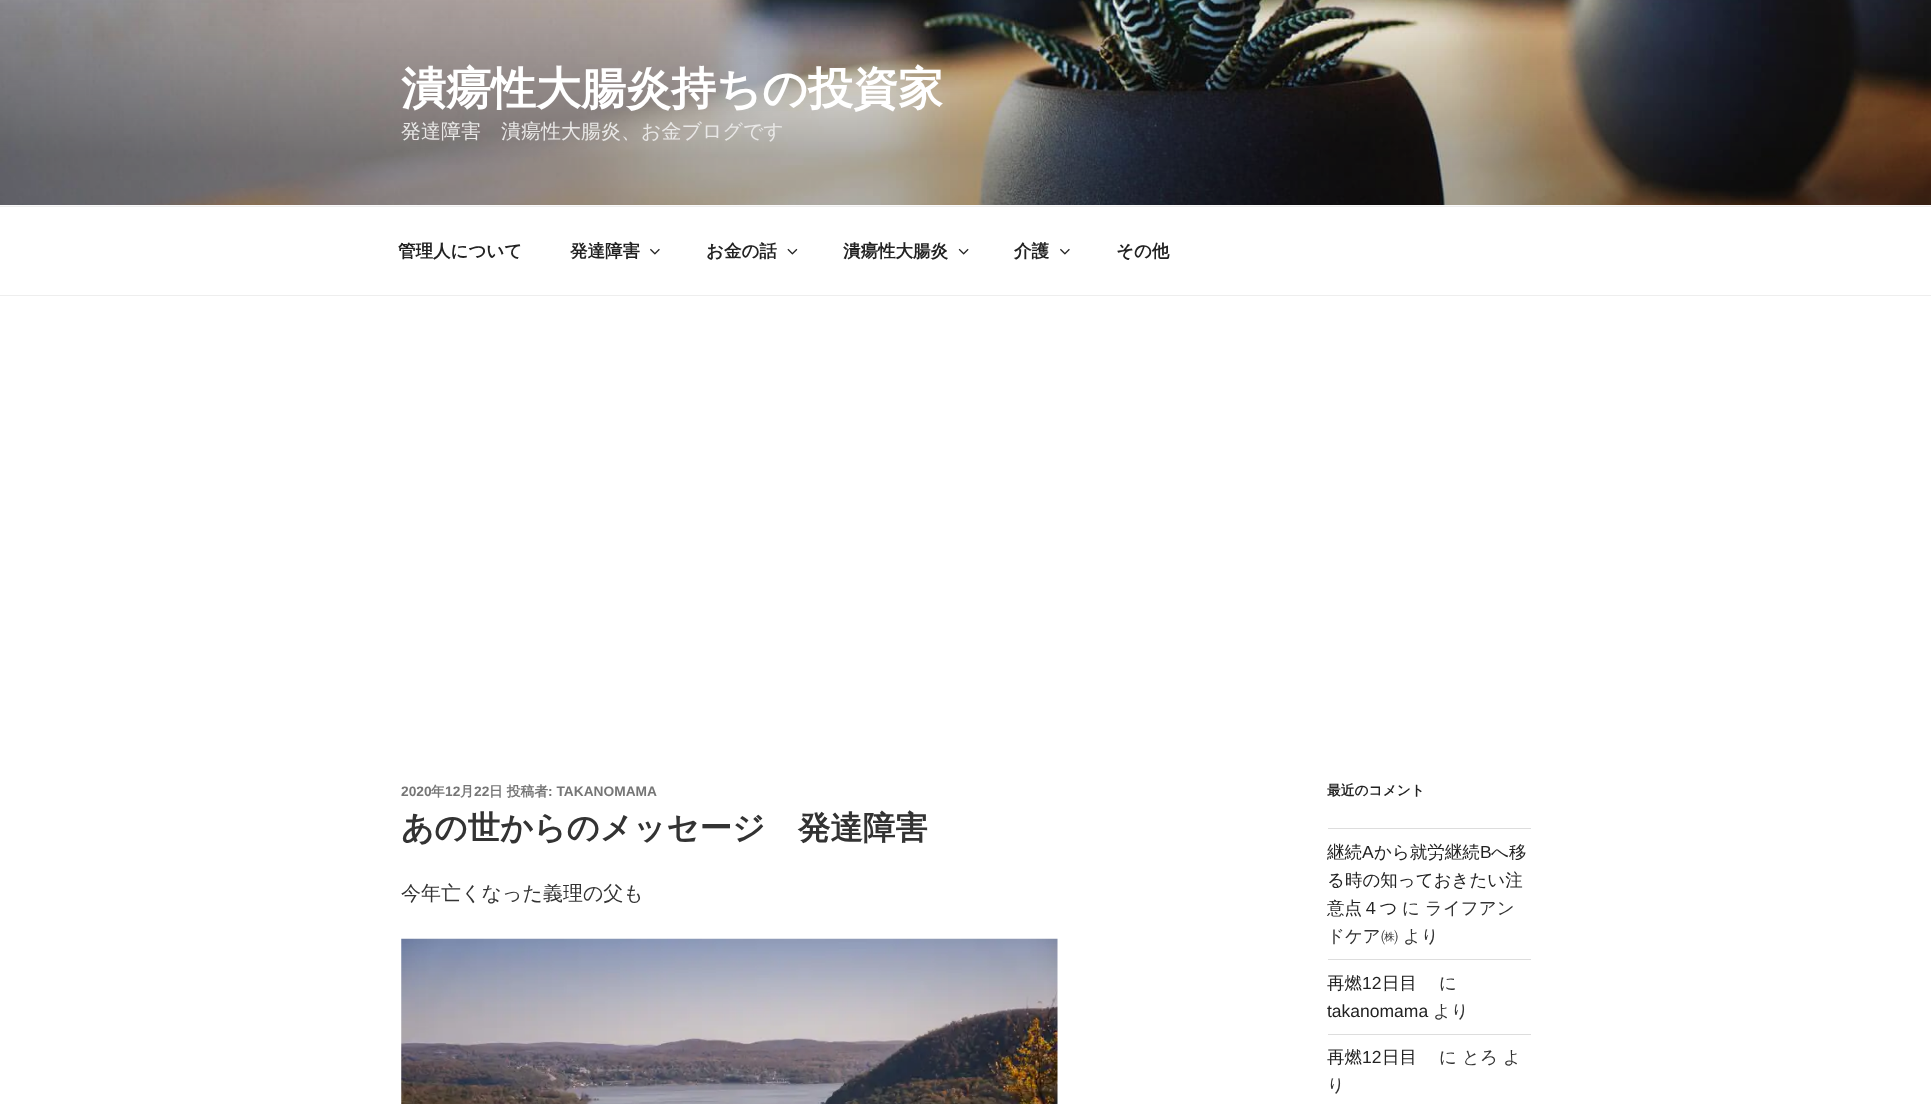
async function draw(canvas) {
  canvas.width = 1931
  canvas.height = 1104
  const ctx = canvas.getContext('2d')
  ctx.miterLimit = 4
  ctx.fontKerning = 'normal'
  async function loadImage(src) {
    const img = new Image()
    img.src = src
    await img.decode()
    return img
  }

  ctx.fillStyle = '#fff'
  ctx.fillRect(0, 0, 1931, 1104)
  ctx.fillStyle = '#fafafa'
  ctx.fillRect(0, 205, 1931, 1)
  ctx.drawImage(await loadImage('image0.png'), 0, 0, 1931, 205)
  ctx.font = 'bold 45px WenQuanYi Zen Hei'
  ctx.fillStyle = '#fff'
  ctx.fillText('潰瘍性大腸炎持ちの投資家', 401, 104)
  ctx.font = '500 20px WenQuanYi Zen Hei'
  ctx.fillStyle = '#e9e8e7'
  ctx.fillText('発達障害　潰瘍性大腸炎、お金ブログです', 401, 138)
  ctx.fillStyle = '#eee'
  ctx.fillRect(0, 206, 1931, 1)
  ctx.fillRect(0, 295, 1931, 1)
  ctx.font = 'bold 17.5px WenQuanYi Zen Hei'
  ctx.fillStyle = '#222'
  ctx.fillText('管理人について', 398, 257)
  ctx.fillText('発達障害', 570, 257)
  ctx.drawImage(await loadImage('image1.png'), 650, 248, 10, 7)
  ctx.fillText('お金の話', 706, 257)
  ctx.drawImage(await loadImage('image2.png'), 787, 248, 11, 7)
  ctx.fillText('潰瘍性大腸炎', 843, 257)
  ctx.drawImage(await loadImage('image3.png'), 958, 248, 11, 7)
  ctx.fillText('介護', 1014, 257)
  ctx.drawImage(await loadImage('image1.png'), 1060, 248, 10, 7)
  ctx.fillText('その他', 1116, 257)
  ctx.font = 'bold 13.75px Liberation Sans'
  ctx.fillStyle = '#767676'
  ctx.fillText('2020', 401, 796)
  ctx.font = 'bold 13.75px WenQuanYi Zen Hei'
  ctx.fillText('年', 431, 796)
  ctx.font = 'bold 13.75px Liberation Sans'
  ctx.fillText('12', 445, 796)
  ctx.font = 'bold 13.75px WenQuanYi Zen Hei'
  ctx.fillText('月', 460, 796)
  ctx.font = 'bold 13.75px Liberation Sans'
  ctx.fillText('22', 474, 796)
  ctx.font = 'bold 13.75px WenQuanYi Zen Hei'
  ctx.fillText('日 投稿者', 489, 796)
  ctx.font = 'bold 13.75px Liberation Sans'
  ctx.fillText(': TAKANOMAMA', 548, 796)
  ctx.font = 'bold 32.5px WenQuanYi Zen Hei'
  ctx.fillStyle = '#333'
  ctx.fillText('あの世からのメッセージ　発達障害', 401, 839)
  ctx.font = '500 20px WenQuanYi Zen Hei'
  ctx.fillText('今年亡くなった義理の父も', 401, 900)
  ctx.drawImage(await loadImage('image4.png'), 401, 938, 657, 166)
  ctx.font = 'bold 13.75px WenQuanYi Zen Hei'
  ctx.fillStyle = '#222'
  ctx.fillText('最近のコメント', 1327, 795)
  ctx.fillStyle = '#ddd'
  ctx.fillRect(1328, 828, 203, 1)
  ctx.fillRect(1328, 959, 203, 1)
  ctx.font = '500 17.5px WenQuanYi Zen Hei'
  ctx.fillStyle = '#222'
  ctx.fillText('継続', 1327, 858)
  ctx.font = '17.5px Liberation Sans'
  ctx.fillText('A', 1362, 858)
  ctx.font = '500 17.5px WenQuanYi Zen Hei'
  ctx.fillText('から就労継続', 1374, 858)
  ctx.font = '17.5px Liberation Sans'
  ctx.fillText('B', 1480, 858)
  ctx.font = '500 17.5px WenQuanYi Zen Hei'
  ctx.fillText('へ移', 1491, 858)
  ctx.fillText('る時の知っておきたい注', 1327, 886)
  ctx.fillText('意点４つ', 1327, 914)
  ctx.fillStyle = '#333'
  ctx.fillText('に', 1402, 914)
  ctx.fillText('ライフアン', 1425, 914)
  ctx.fillText('ドケア㈱', 1327, 942)
  ctx.fillText('より', 1403, 942)
  ctx.fillStyle = '#ddd'
  ctx.fillRect(1328, 1034, 203, 1)
  ctx.fillStyle = '#222'
  ctx.fillText('再燃', 1327, 989)
  ctx.font = '17.5px Liberation Sans'
  ctx.fillText('12', 1362, 989)
  ctx.font = '500 17.5px WenQuanYi Zen Hei'
  ctx.fillText('日目', 1382, 989)
  ctx.fillStyle = '#333'
  ctx.fillText('に', 1439, 989)
  ctx.font = '17.5px Liberation Sans'
  ctx.fillStyle = '#222'
  ctx.fillText('takanomama', 1327, 1017)
  ctx.font = '500 17.5px WenQuanYi Zen Hei'
  ctx.fillStyle = '#333'
  ctx.fillText('より', 1433, 1017)
  ctx.fillStyle = '#222'
  ctx.fillText('再燃', 1327, 1063)
  ctx.font = '17.5px Liberation Sans'
  ctx.fillText('12', 1362, 1063)
  ctx.font = '500 17.5px WenQuanYi Zen Hei'
  ctx.fillText('日目', 1382, 1063)
  ctx.fillStyle = '#333'
  ctx.fillText('に', 1439, 1063)
  ctx.fillText('とろ', 1462, 1063)
  ctx.fillText('よ', 1503, 1063)
  ctx.fillText('り', 1327, 1091)
}

draw(document.querySelector('canvas'))
